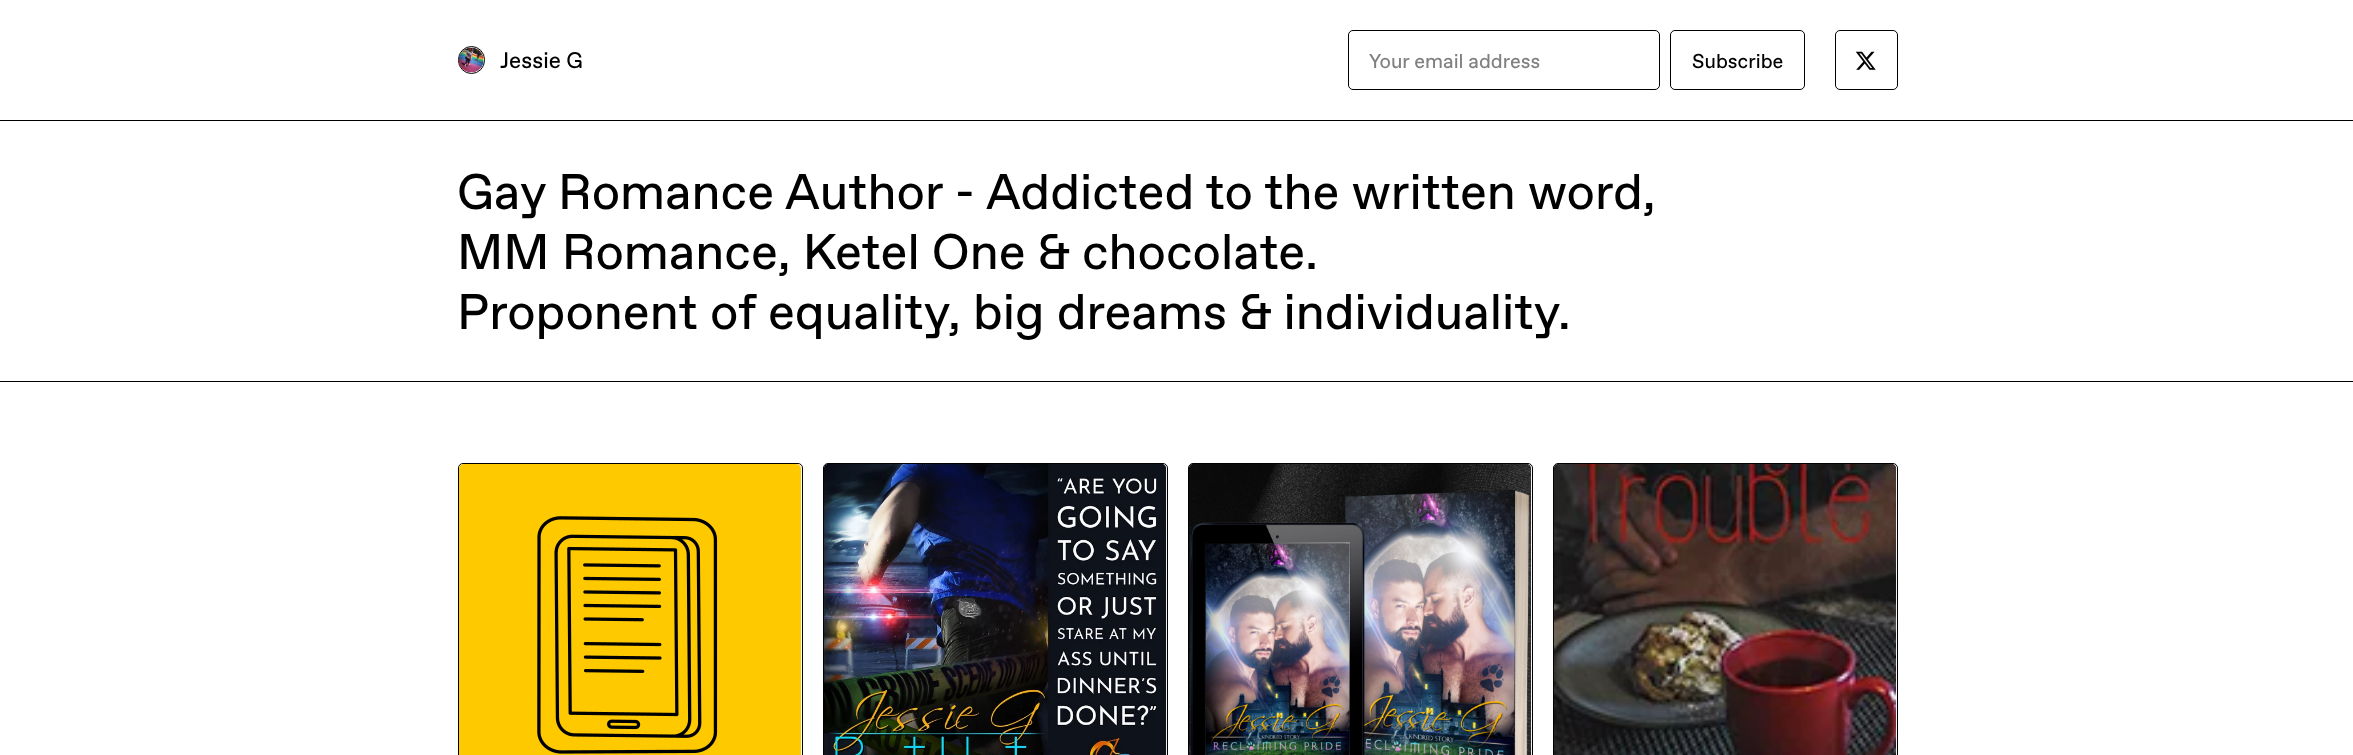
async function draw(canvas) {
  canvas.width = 2353
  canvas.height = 755
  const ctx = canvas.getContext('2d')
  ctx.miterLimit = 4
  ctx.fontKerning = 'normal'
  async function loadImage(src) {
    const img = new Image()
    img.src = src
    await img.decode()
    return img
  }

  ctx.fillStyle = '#fff'
  ctx.fillRect(0, 0, 2353, 755)
  ctx.fillStyle = '#000'
  ctx.fillRect(0, 120, 2353, 1)
  ctx.beginPath()
  ctx.roundRect(458.5, 46.5, 26, 27, 13)
  ctx.strokeStyle = '#000'
  ctx.stroke()
  ctx.drawImage(await loadImage('image0.png'), 458, 47, 26, 26)
  ctx.font = '22.5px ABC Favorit'
  ctx.fillText('Jessie G', 500, 68)
  ctx.beginPath()
  ctx.roundRect(1348.5, 30.5, 311, 59, 4.5)
  ctx.stroke()
  ctx.font = '20px ABC Favorit'
  ctx.fillStyle = '#808080'
  ctx.fillText('Your email address', 1369, 68)
  ctx.beginPath()
  ctx.roundRect(1670.5, 30.5, 134, 59, 4.5)
  ctx.stroke()
  ctx.fillStyle = '#000'
  ctx.fillText('Subscribe', 1692, 68)
  ctx.beginPath()
  ctx.roundRect(1835.5, 30.5, 62, 59, 4.5)
  ctx.stroke()
  ctx.drawImage(await loadImage('image1.png'), 1855, 51, 21, 19)
  ctx.fillRect(0, 381, 2353, 1)
  ctx.font = '50px ABC Favorit'
  ctx.fillText('Gay Romance Author - Addicted to the written word,', 457, 209)
  ctx.fillText('MM Romance, Ketel One & chocolate.', 457, 269)
  ctx.fillText('Proponent of equality, big dreams & individuality.', 457, 329)
  ctx.beginPath()
  ctx.roundRect(458.5, 463.5, 344, 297, 4.5)
  ctx.stroke()
  ctx.drawImage(await loadImage('image2.png'), 459, 464, 342, 291)
  ctx.beginPath()
  ctx.roundRect(823.5, 463.5, 344, 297, 4.5)
  ctx.stroke()
  ctx.drawImage(await loadImage('image3.png'), 823, 463, 344, 292)
  ctx.beginPath()
  ctx.roundRect(1188.5, 463.5, 344, 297, 4.5)
  ctx.stroke()
  ctx.drawImage(await loadImage('image4.png'), 1189, 463, 343, 292)
  ctx.beginPath()
  ctx.roundRect(1553.5, 463.5, 344, 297, 4.5)
  ctx.stroke()
  ctx.drawImage(await loadImage('image5.png'), 1553, 463, 344, 292)
}

draw(document.querySelector('canvas'))
